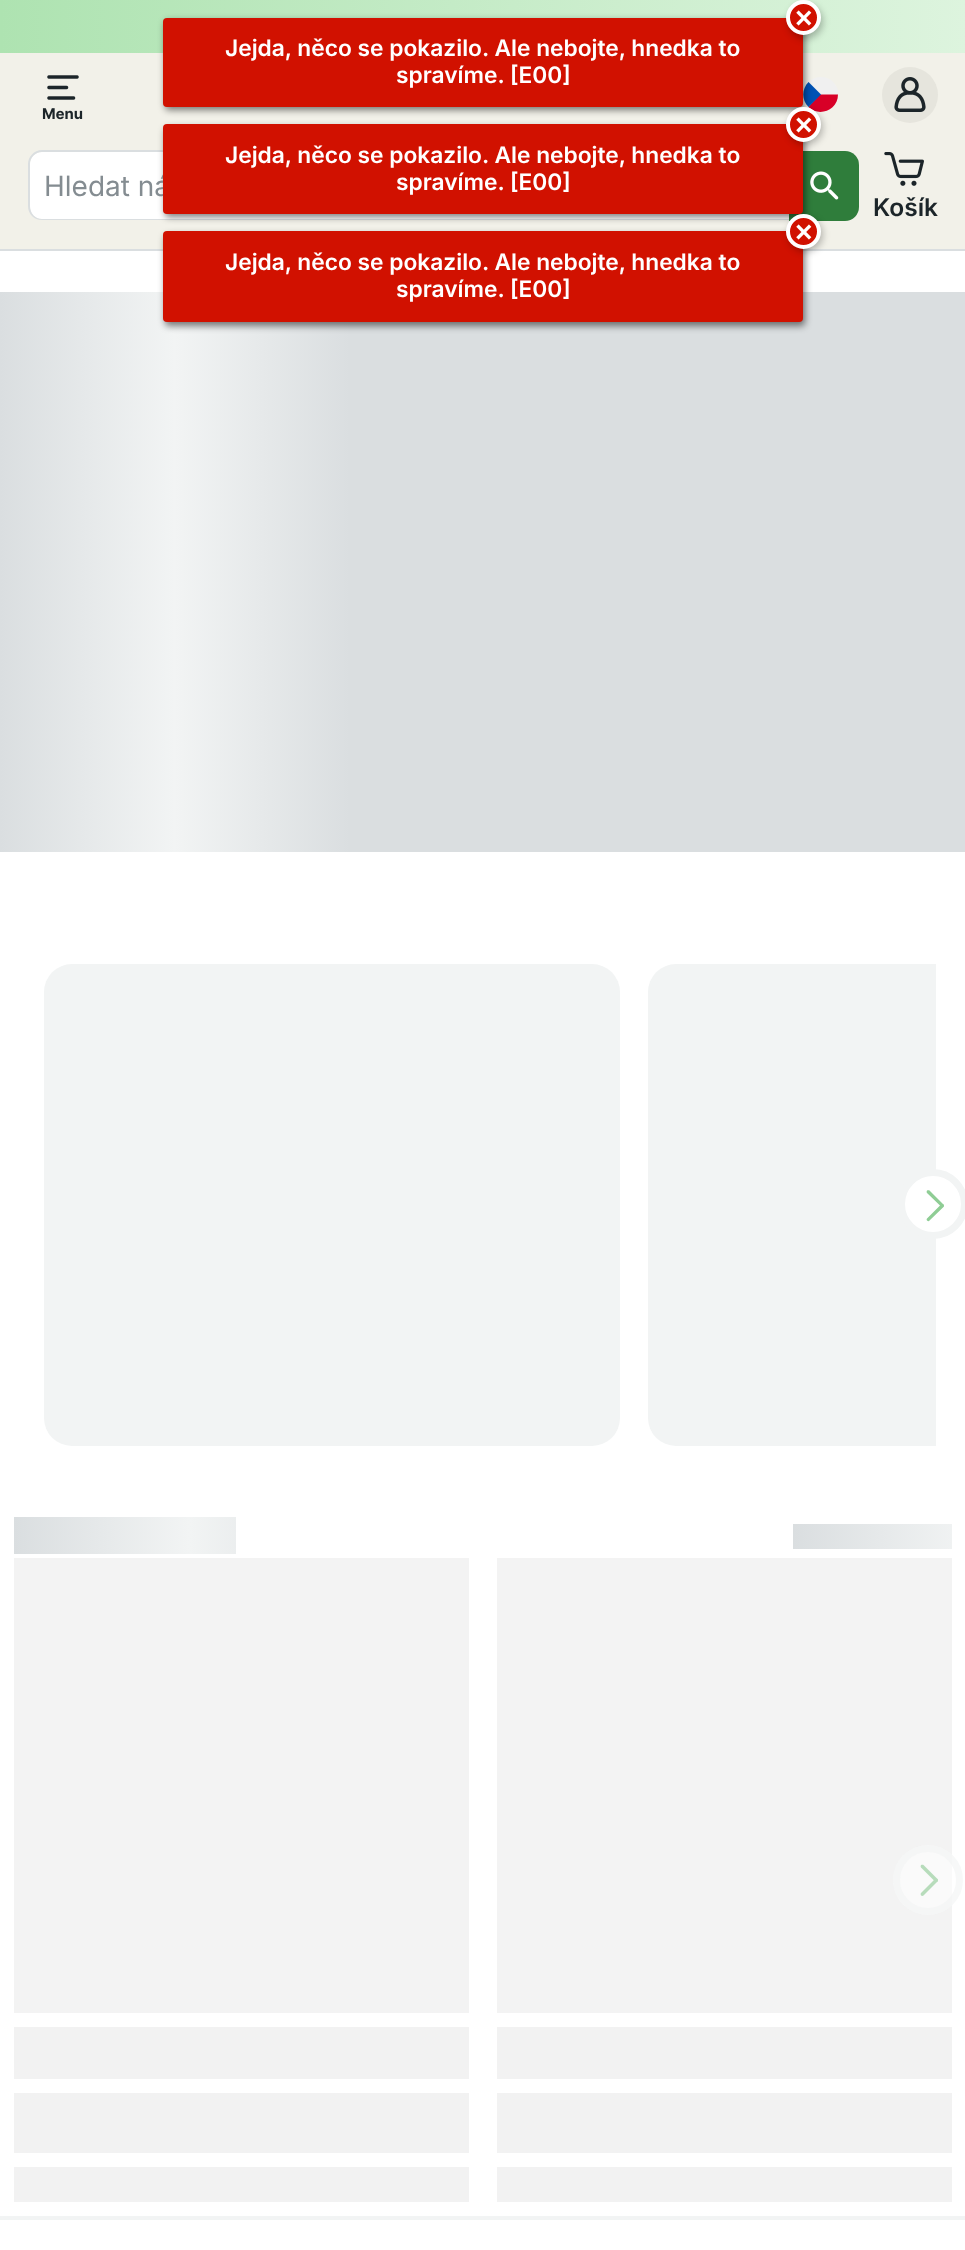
async function draw(canvas) {
  canvas.width = 965
  canvas.height = 2250
  const ctx = canvas.getContext('2d')
  ctx.miterLimit = 4
  ctx.fontKerning = 'normal'
  async function loadImage(src) {
    const img = new Image()
    img.src = src
    await img.decode()
    return img
  }
  let gradient

  ctx.fillStyle = '#fff'
  ctx.fillRect(0, 0, 965, 2250)
  gradient = ctx.createLinearGradient(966, 26, 0, 26)
  gradient.addColorStop(0, '#ddf4de')
  gradient.addColorStop(1, '#aee3b1')
  ctx.fillStyle = gradient
  ctx.fillRect(0, 0, 965, 53)
  ctx.fillStyle = '#f2f1e9'
  ctx.fillRect(0, 53, 965, 196)
  ctx.save()
  ctx.beginPath()
  ctx.rect(803, 77, 35, 35)
  ctx.clip()
  ctx.fillStyle = '#f0f0f0'
  ctx.beginPath()
  ctx.arc(821, 94.5, 17.5, 0, 2 * Math.PI)
  ctx.fill()
  ctx.restore()
  ctx.fillStyle = '#d80027'
  ctx.beginPath()
  ctx.moveTo(819.5, 94.5)
  ctx.lineTo(808.5, 107)
  ctx.bezierCurveTo(819, 117.5, 838, 110, 838, 94.5)
  ctx.closePath()
  ctx.fill()
  ctx.fillStyle = '#0052b4'
  ctx.beginPath()
  ctx.moveTo(808.5, 82)
  ctx.bezierCurveTo(801.5, 89, 801.5, 100, 808.5, 107)
  ctx.lineTo(821, 94.5)
  ctx.closePath()
  ctx.fill()
  ctx.fillStyle = '#00000082'
  ctx.filter = 'blur(3.5px)'
  ctx.beginPath()
  ctx.roundRect(165, 21, 640, 89, 4)
  ctx.fill()
  ctx.filter = 'none'
  ctx.fillStyle = '#d11100'
  ctx.beginPath()
  ctx.roundRect(163, 18, 640, 89, 4)
  ctx.fill()
  ctx.fillStyle = '#00000040'
  ctx.filter = 'blur(3.5px)'
  ctx.beginPath()
  ctx.roundRect(788, 4, 35, 35, 17.5)
  ctx.fill()
  ctx.filter = 'none'
  ctx.fillStyle = '#d11100'
  ctx.beginPath()
  ctx.arc(803.5, 17.5, 15.5, 0, 2 * Math.PI)
  ctx.fill()
  ctx.strokeStyle = '#fff'
  ctx.lineWidth = 4
  ctx.stroke()
  ctx.font = 'bold 30px Liberation Sans'
  ctx.fillStyle = '#fff'
  ctx.fillText('×', 795, 28)
  ctx.font = '600 22.75px Inter'
  ctx.fillText('Jejda, něco se pokazilo. Ale nebojte, hnedka to', 225, 56)
  ctx.fillText('spravíme. [E00]', 396, 83)
  ctx.beginPath()
  ctx.roundRect(30, 152, 759, 67, [12, 0, 0, 12])
  ctx.fill()
  ctx.fillStyle = '#dadee0'
  ctx.beginPath()
  ctx.moveTo(42, 150)
  ctx.lineTo(789, 150)
  ctx.lineTo(789, 220)
  ctx.lineTo(42, 220)
  ctx.bezierCurveTo(34, 220, 28, 214, 28, 206)
  ctx.lineTo(28, 164)
  ctx.bezierCurveTo(28, 157, 34, 150, 42, 150)
  ctx.closePath()
  ctx.moveTo(42, 152)
  ctx.lineTo(789, 152)
  ctx.lineTo(789, 219)
  ctx.lineTo(42, 219)
  ctx.bezierCurveTo(35, 219, 30, 213, 30, 206)
  ctx.lineTo(30, 164)
  ctx.bezierCurveTo(30, 158, 35, 152, 42, 152)
  ctx.closePath()
  ctx.fill('evenodd')
  ctx.fillStyle = '#2f7d3b'
  ctx.beginPath()
  ctx.roundRect(789, 151, 70, 70, [0, 14, 14, 0])
  ctx.fill()
  ctx.drawImage(await loadImage('image2.png'), 810, 171, 29, 29)
  ctx.fillStyle = '#00000082'
  ctx.filter = 'blur(3.5px)'
  ctx.beginPath()
  ctx.roundRect(165, 128, 640, 89, 4)
  ctx.fill()
  ctx.filter = 'none'
  ctx.font = '28px Inter'
  ctx.fillStyle = '#848c91'
  ctx.fillText('Hledat ná', 44, 196)
  ctx.fillStyle = '#d11100'
  ctx.beginPath()
  ctx.roundRect(163, 124, 640, 90, 4)
  ctx.fill()
  ctx.fillStyle = '#00000040'
  ctx.filter = 'blur(3.5px)'
  ctx.beginPath()
  ctx.roundRect(788, 110, 35, 35, 17.5)
  ctx.fill()
  ctx.filter = 'none'
  ctx.fillStyle = '#d11100'
  ctx.beginPath()
  ctx.arc(803.5, 124.5, 15.5, 0, 2 * Math.PI)
  ctx.fill()
  ctx.stroke()
  ctx.font = 'bold 30px Liberation Sans'
  ctx.fillStyle = '#fff'
  ctx.fillText('×', 795, 135)
  ctx.font = '600 22.75px Inter'
  ctx.fillText('Jejda, něco se pokazilo. Ale nebojte, hnedka to', 225, 163)
  ctx.fillText('spravíme. [E00]', 396, 190)
  ctx.fillStyle = '#dadee0'
  ctx.fillRect(0, 249, 965, 2)
  ctx.fillRect(350, 292, 615, 560)
  gradient = ctx.createLinearGradient(0, 572, 350, 572)
  gradient.addColorStop(0, '#dadee0')
  gradient.addColorStop(0.5, '#f2f4f4')
  gradient.addColorStop(1, '#dadee0')
  ctx.fillStyle = gradient
  ctx.fillRect(0, 292, 350, 560)
  ctx.fillStyle = '#00000082'
  ctx.filter = 'blur(3.5px)'
  ctx.beginPath()
  ctx.roundRect(165, 235, 640, 91, 4)
  ctx.fill()
  ctx.filter = 'none'
  ctx.fillStyle = '#d11100'
  ctx.beginPath()
  ctx.roundRect(163, 231, 640, 91, 4)
  ctx.fill()
  ctx.fillStyle = '#00000040'
  ctx.filter = 'blur(3.5px)'
  ctx.beginPath()
  ctx.roundRect(788, 217, 35, 35, 17.5)
  ctx.fill()
  ctx.filter = 'none'
  ctx.fillStyle = '#d11100'
  ctx.beginPath()
  ctx.arc(803.5, 231.5, 15.5, 0, 2 * Math.PI)
  ctx.fill()
  ctx.stroke()
  ctx.font = 'bold 30px Liberation Sans'
  ctx.fillStyle = '#fff'
  ctx.fillText('×', 795, 242)
  ctx.font = '600 22.75px Inter'
  ctx.fillText('Jejda, něco se pokazilo. Ale nebojte, hnedka to', 225, 270)
  ctx.fillText('spravíme. [E00]', 396, 297)
  ctx.drawImage(await loadImage('image0.png'), 42, 75, 41, 45)
  ctx.fillStyle = '#e6e5dd'
  ctx.beginPath()
  ctx.arc(910, 95, 28, 0, 2 * Math.PI)
  ctx.fill()
  ctx.drawImage(await loadImage('image1.png'), 894, 77, 32, 35)
  ctx.drawImage(await loadImage('image3.png'), 884, 152, 40, 34)
  ctx.font = '600 24.5px Inter'
  ctx.fillStyle = '#1c2529'
  ctx.fillText('Košík', 873, 216)
  ctx.fillStyle = '#f2f4f4'
  ctx.beginPath()
  ctx.roundRect(44, 964, 576, 482, 28)
  ctx.fill()
  ctx.beginPath()
  ctx.roundRect(648, 964, 288, 482, [28, 0, 0, 28])
  ctx.fill()
  ctx.fillStyle = '#fff'
  ctx.beginPath()
  ctx.arc(933, 1204, 31.5, 0, 2 * Math.PI)
  ctx.fill()
  ctx.strokeStyle = '#f2f4f4'
  ctx.lineWidth = 7
  ctx.stroke()
  ctx.fillStyle = '#8fcd95'
  ctx.beginPath()
  ctx.moveTo(927, 1190.5)
  ctx.bezierCurveTo(928, 1190, 929, 1190, 929.5, 1190.5)
  ctx.lineTo(943.5, 1204.5)
  ctx.bezierCurveTo(944, 1205, 944, 1206, 943.5, 1206.5)
  ctx.bezierCurveTo(942.5, 1207.5, 941.5, 1207.5, 941, 1206.5)
  ctx.lineTo(927, 1193)
  ctx.bezierCurveTo(926.5, 1192.5, 926.5, 1191.5, 927, 1190.5)
  ctx.closePath()
  ctx.fill()
  ctx.beginPath()
  ctx.moveTo(943.5, 1204.5)
  ctx.bezierCurveTo(944, 1205.5, 944, 1206.5, 943.5, 1207)
  ctx.lineTo(929.5, 1220.5)
  ctx.bezierCurveTo(929, 1221.5, 928, 1221.5, 927, 1220.5)
  ctx.bezierCurveTo(926.5, 1220, 926.5, 1219, 927, 1218.5)
  ctx.lineTo(941, 1204.5)
  ctx.bezierCurveTo(941.5, 1204, 942.5, 1204, 943.5, 1204.5)
  ctx.closePath()
  ctx.fill()
  gradient = ctx.createLinearGradient(14, 1536, 364, 1536)
  gradient.addColorStop(0, '#dadee0')
  gradient.addColorStop(0.5, '#f2f4f4')
  gradient.addColorStop(1, '#dadee0')
  ctx.fillStyle = gradient
  ctx.fillRect(14, 1517, 222, 37)
  gradient = ctx.createLinearGradient(793, 1537, 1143, 1537)
  gradient.addColorStop(0, '#dadee0')
  gradient.addColorStop(0.5, '#f2f4f4')
  gradient.addColorStop(1, '#dadee0')
  ctx.fillStyle = gradient
  ctx.fillRect(793, 1524, 159, 25)
  ctx.fillStyle = '#f3f3f3'
  ctx.fillRect(14, 1558, 455, 455)
  ctx.fillStyle = '#f2f2f2'
  ctx.fillRect(14, 2027, 455, 52)
  ctx.fillRect(14, 2093, 455, 60)
  ctx.fillRect(14, 2167, 455, 35)
  ctx.fillStyle = '#f3f3f3'
  ctx.fillRect(497, 1558, 455, 455)
  ctx.fillStyle = '#f2f2f2'
  ctx.fillRect(497, 2027, 455, 52)
  ctx.fillRect(497, 2093, 455, 60)
  ctx.fillRect(497, 2167, 455, 35)
  ctx.fillStyle = '#ffffff99'
  ctx.beginPath()
  ctx.arc(928, 1880, 35, 0, 2 * Math.PI)
  ctx.fill()
  ctx.beginPath()
  ctx.arc(928, 1880, 31.5, 0, 2 * Math.PI)
  ctx.strokeStyle = '#f2f4f499'
  ctx.stroke()
  ctx.fillStyle = '#b7dcbb'
  ctx.beginPath()
  ctx.moveTo(921, 1865)
  ctx.bezierCurveTo(922, 1864.5, 923, 1864.5, 923.5, 1865)
  ctx.lineTo(937.5, 1879)
  ctx.bezierCurveTo(938, 1879.5, 938, 1880.5, 937.5, 1881.5)
  ctx.bezierCurveTo(936.5, 1882, 935.5, 1882, 935, 1881.5)
  ctx.lineTo(921, 1867.5)
  ctx.bezierCurveTo(920.5, 1867, 920.5, 1866, 921, 1865)
  ctx.closePath()
  ctx.fill()
  ctx.beginPath()
  ctx.moveTo(937.5, 1879)
  ctx.bezierCurveTo(938, 1880, 938, 1881, 937.5, 1881.5)
  ctx.lineTo(923.5, 1895.5)
  ctx.bezierCurveTo(923, 1896, 922, 1896, 921, 1895.5)
  ctx.bezierCurveTo(920.5, 1894.5, 920.5, 1893.5, 921, 1893)
  ctx.lineTo(935, 1879)
  ctx.bezierCurveTo(935.5, 1878.5, 936.5, 1878.5, 937.5, 1879)
  ctx.closePath()
  ctx.fill()
  ctx.fillStyle = '#f2f4f4'
  ctx.fillRect(0, 2216, 965, 4)
}

draw(document.querySelector('canvas'))
